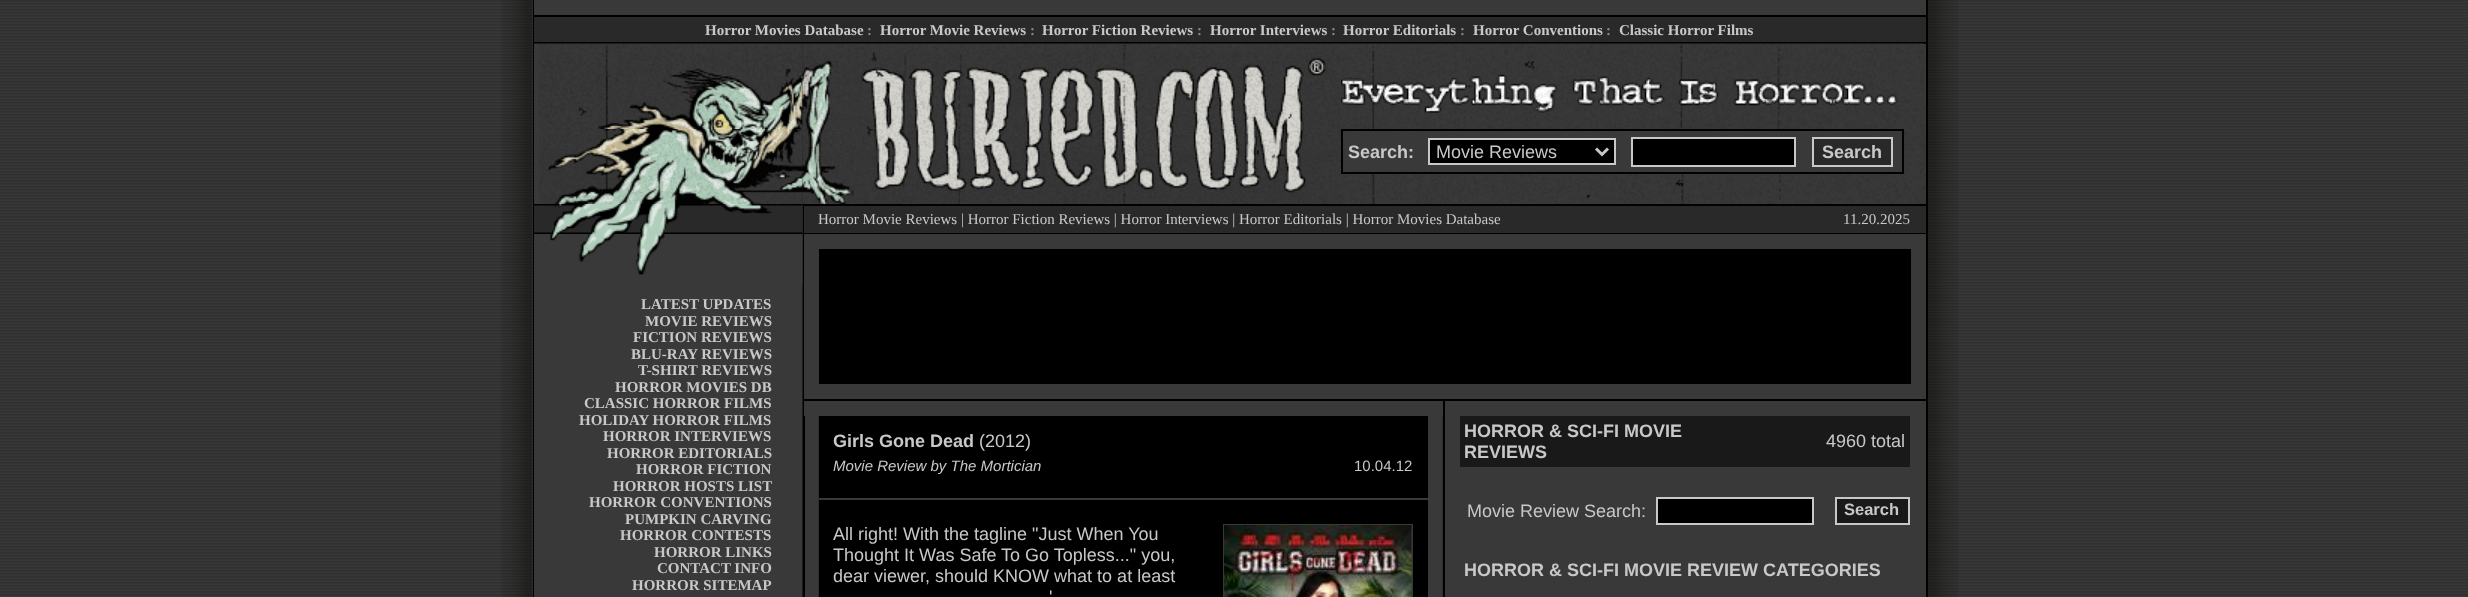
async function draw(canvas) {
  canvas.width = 2468
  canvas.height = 597
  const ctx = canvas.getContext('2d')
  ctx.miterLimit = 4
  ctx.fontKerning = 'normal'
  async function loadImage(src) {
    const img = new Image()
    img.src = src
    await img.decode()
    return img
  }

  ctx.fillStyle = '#393939'
  ctx.fillRect(0, 0, 2468, 597)
  ctx.drawImage(await loadImage('image0.png'), 0, 0, 2468, 596)
  ctx.drawImage(await loadImage('image1.png'), 501, 0, 32, 597)
  ctx.fillStyle = '#000'
  ctx.fillRect(533, 0, 1, 597)
  ctx.fillStyle = '#393939'
  ctx.fillRect(534, 45, 1392, 551)
  ctx.drawImage(await loadImage('image2.png'), 802, 44, 641, 553)
  ctx.fillRect(534, 0, 1392, 14)
  ctx.fillStyle = '#000'
  ctx.fillRect(534, 15, 1392, 2)
  ctx.fillStyle = '#292929'
  ctx.fillRect(534, 17, 1392, 25)
  ctx.font = 'bold 15px Liberation Serif'
  ctx.fillStyle = '#c8c8c8'
  ctx.fillText('Horror Movies Database', 705, 35)
  ctx.fillStyle = '#888'
  ctx.fillText(':', 867, 35)
  ctx.fillStyle = '#c8c8c8'
  ctx.fillText('Horror Movie Reviews', 880, 35)
  ctx.fillStyle = '#888'
  ctx.fillText(':', 1030, 35)
  ctx.fillStyle = '#c8c8c8'
  ctx.fillText('Horror Fiction Reviews', 1042, 35)
  ctx.fillStyle = '#888'
  ctx.fillText(':', 1197, 35)
  ctx.fillStyle = '#c8c8c8'
  ctx.fillText('Horror Interviews', 1210, 35)
  ctx.fillStyle = '#888'
  ctx.fillText(':', 1331, 35)
  ctx.fillStyle = '#c8c8c8'
  ctx.fillText('Horror Editorials', 1343, 35)
  ctx.fillStyle = '#888'
  ctx.fillText(':', 1460, 35)
  ctx.fillStyle = '#c8c8c8'
  ctx.fillText('Horror Conventions', 1473, 35)
  ctx.fillStyle = '#888'
  ctx.fillText(':', 1606, 35)
  ctx.fillStyle = '#c8c8c8'
  ctx.fillText('Classic Horror Films', 1619, 35)
  ctx.fillStyle = '#000'
  ctx.fillRect(534, 42, 1392, 2)
  ctx.drawImage(await loadImage('image3.png'), 534, 43, 269, 86)
  ctx.drawImage(await loadImage('image4.png'), 802, 43, 539, 86)
  ctx.drawImage(await loadImage('image5.png'), 1341, 43, 584, 86)
  ctx.drawImage(await loadImage('image6.png'), 539, 129, 264, 75)
  ctx.drawImage(await loadImage('image7.png'), 802, 129, 539, 75)
  ctx.drawImage(await loadImage('image8.png'), 1341, 129, 585, 75)
  ctx.fillStyle = '#393939'
  ctx.beginPath()
  ctx.rect(1342, 130, 561, 43)
  ctx.fill()
  ctx.strokeStyle = '#000'
  ctx.lineWidth = 2
  ctx.stroke()
  ctx.font = 'bold 18px Liberation Sans'
  ctx.fillStyle = '#c8c8c8'
  ctx.fillText('Search:', 1348, 158)
  ctx.fillStyle = '#000'
  ctx.beginPath()
  ctx.rect(1429, 139, 186, 25)
  ctx.fill()
  ctx.strokeStyle = '#c8c8c8'
  ctx.stroke()
  ctx.beginPath()
  ctx.moveTo(1596, 148.5)
  ctx.lineTo(1602, 154.5)
  ctx.lineTo(1608, 148.5)
  ctx.lineWidth = 3
  ctx.stroke()
  ctx.font = '18px Liberation Sans'
  ctx.fillStyle = '#c8c8c8'
  ctx.fillText('Movie Reviews', 1436, 158)
  ctx.fillStyle = '#000'
  ctx.beginPath()
  ctx.rect(1632, 138, 163, 28)
  ctx.fill()
  ctx.lineWidth = 2
  ctx.stroke()
  ctx.fillStyle = '#292929'
  ctx.beginPath()
  ctx.rect(1813, 138, 79, 28)
  ctx.fill()
  ctx.stroke()
  ctx.font = 'bold 18px Liberation Sans'
  ctx.fillStyle = '#c8c8c8'
  ctx.fillText('Search', 1822, 158)
  ctx.drawImage(await loadImage('image9.png'), 534, 204, 269, 30)
  ctx.fillStyle = '#000'
  ctx.fillRect(803, 204, 1, 30)
  ctx.fillRect(804, 204, 1122, 2)
  ctx.fillStyle = '#292929'
  ctx.fillRect(804, 206, 1122, 27)
  ctx.font = '15px Liberation Serif'
  ctx.fillStyle = '#c8c8c8'
  ctx.fillText('Horror Movie Reviews | Horror Fiction Reviews | Horror Interviews | Horror Editorials | Horror Movies Database', 818, 224)
  ctx.fillText('11.20.2025', 1843, 224)
  ctx.fillStyle = '#000'
  ctx.fillRect(804, 233, 1122, 1)
  ctx.drawImage(await loadImage('image10.png'), 550, 234, 253, 53)
  ctx.font = 'bold 15px Liberation Serif'
  ctx.fillStyle = '#c8c8c8'
  ctx.fillText('LATEST UPDATES', 641, 309)
  ctx.fillText('MOVIE REVIEWS', 645, 326)
  ctx.fillText('FICTION REVIEWS', 633, 342)
  ctx.fillText('BLU-RAY REVIEWS', 631, 359)
  ctx.fillText('T-SHIRT REVIEWS', 638, 375)
  ctx.fillText('HORROR MOVIES DB', 615, 392)
  ctx.fillText('CLASSIC HORROR FILMS', 584, 408)
  ctx.fillText('HOLIDAY HORROR FILMS', 579, 425)
  ctx.fillText('HORROR INTERVIEWS', 603, 441)
  ctx.fillText('HORROR EDITORIALS', 607, 458)
  ctx.fillText('HORROR FICTION', 636, 474)
  ctx.fillText('HORROR HOSTS LIST', 613, 491)
  ctx.fillText('HORROR CONVENTIONS', 589, 507)
  ctx.fillText('PUMPKIN CARVING', 625, 524)
  ctx.fillText('HORROR CONTESTS', 620, 540)
  ctx.fillText('HORROR LINKS', 654, 557)
  ctx.fillText('CONTACT INFO', 657, 573)
  ctx.fillText('HORROR SITEMAP', 632, 590)
  ctx.fillStyle = '#000'
  ctx.fillRect(803, 234, 2, 363)
  ctx.fillStyle = '#393939'
  ctx.fillRect(804, 234, 639, 15)
  ctx.fillRect(804, 249, 15, 135)
  ctx.fillStyle = '#000'
  ctx.fillRect(819, 249, 1092, 135)
  ctx.fillStyle = '#393939'
  ctx.fillRect(804, 384, 639, 15)
  ctx.fillStyle = '#000'
  ctx.fillRect(804, 399, 1122, 2)
  ctx.fillStyle = '#393939'
  ctx.fillRect(804, 401, 639, 15)
  ctx.fillStyle = '#000'
  ctx.fillRect(819, 416, 609, 181)
  ctx.font = 'bold 18px Liberation Sans'
  ctx.fillStyle = '#c8c8c8'
  ctx.fillText('Girls Gone Dead', 833, 447)
  ctx.font = '18px Liberation Sans'
  ctx.fillText('(2012)', 979, 447)
  ctx.font = 'italic 15px Liberation Sans'
  ctx.fillText('Movie Review by The Mortician', 833, 471)
  ctx.font = '15px Liberation Sans'
  ctx.fillText('10.04.12', 1354, 471)
  ctx.fillStyle = '#393939'
  ctx.fillRect(819, 498, 609, 2)
  ctx.font = '18px Liberation Sans'
  ctx.fillStyle = '#c8c8c8'
  ctx.fillText('All right! With the tagline "Just When You', 833, 540)
  ctx.strokeStyle = '#393939'
  ctx.strokeRect(1224, 525, 188, 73)
  ctx.drawImage(await loadImage('image11.png'), 1224, 525, 188, 72)
  ctx.fillText('Thought It Was Safe To Go Topless..." you,', 833, 561)
  ctx.fillText('dear viewer, should KNOW what to at least', 833, 582)
  ctx.fillText('\'', 1049, 603)
  ctx.fillStyle = '#000'
  ctx.fillRect(1443, 401, 2, 196)
  ctx.fillStyle = '#191919'
  ctx.fillRect(1460, 416, 450, 51)
  ctx.font = 'bold 18px Liberation Sans'
  ctx.fillStyle = '#c8c8c8'
  ctx.fillText('HORROR & SCI-FI MOVIE', 1464, 437)
  ctx.fillText('REVIEWS', 1464, 458)
  ctx.font = '18px Liberation Sans'
  ctx.fillText('4960 total', 1826, 447)
  ctx.fillText('Movie Review Search:', 1467, 517)
  ctx.fillStyle = '#000'
  ctx.beginPath()
  ctx.rect(1657, 498, 156, 26)
  ctx.fill()
  ctx.strokeStyle = '#c8c8c8'
  ctx.stroke()
  ctx.fillStyle = '#191919'
  ctx.beginPath()
  ctx.rect(1836, 498, 73, 26)
  ctx.fill()
  ctx.stroke()
  ctx.font = 'bold 16.5px Liberation Sans'
  ctx.fillStyle = '#c8c8c8'
  ctx.fillText('Search', 1844, 515)
  ctx.font = 'bold 18px Liberation Sans'
  ctx.fillText('HORROR & SCI-FI MOVIE REVIEW CATEGORIES', 1464, 576)
  ctx.fillStyle = '#000'
  ctx.fillRect(1926, 0, 2, 597)
  ctx.drawImage(await loadImage('image12.png'), 1928, 0, 31, 597)
}

draw(document.querySelector('canvas'))
